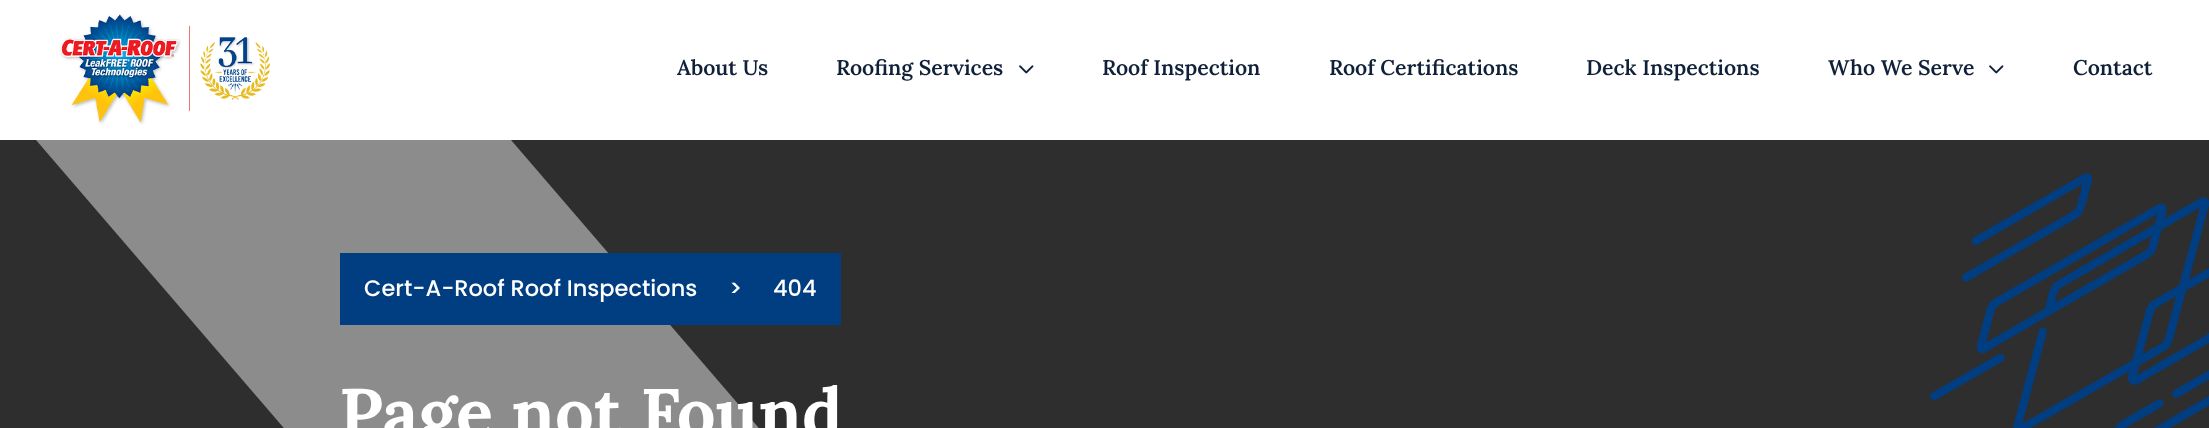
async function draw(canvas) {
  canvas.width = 2209
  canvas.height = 428
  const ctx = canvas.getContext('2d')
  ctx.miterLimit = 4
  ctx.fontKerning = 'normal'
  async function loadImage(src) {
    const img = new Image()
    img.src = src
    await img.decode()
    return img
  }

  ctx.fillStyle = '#fff'
  ctx.fillRect(0, 0, 2209, 428)
  ctx.drawImage(await loadImage('image0.png'), 59, 14, 211, 111)
  ctx.font = '600 21.25px Lora'
  ctx.fillStyle = '#102039'
  ctx.fillText('About Us', 677, 75)
  ctx.fillText('Roofing Services', 836, 75)
  ctx.drawImage(await loadImage('image1.png'), 1019, 65, 15, 9)
  ctx.fillText('Roof Inspection', 1102, 75)
  ctx.fillText('Roof Certifications', 1329, 75)
  ctx.fillText('Deck Inspections', 1586, 75)
  ctx.fillText('Who We Serve', 1828, 75)
  ctx.drawImage(await loadImage('image1.png'), 1989, 65, 15, 9)
  ctx.fillText('Contact', 2073, 75)
  ctx.fillStyle = '#2e2e2e'
  ctx.fillRect(0, 140, 2209, 288)
  ctx.fillStyle = '#8c8c8c'
  ctx.beginPath()
  ctx.moveTo(36, 140)
  ctx.lineTo(511, 140)
  ctx.lineTo(881, 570)
  ctx.lineTo(406, 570)
  ctx.closePath()
  ctx.fill()
  ctx.drawImage(await loadImage('image2.png'), 1930, 173, 279, 255)
  ctx.fillStyle = '#003e81'
  ctx.fillRect(340, 253, 501, 72)
  ctx.font = '500 22.5px Poppins'
  ctx.fillStyle = '#fff'
  ctx.fillText('Cert-A-Roof Roof Inspections', 364, 296)
  ctx.fillText('>', 729, 296)
  ctx.fillText('404', 773, 296)
  ctx.font = 'bold 68.75px Lora'
  ctx.fillText('Page not Found', 339, 437)
}

draw(document.querySelector('canvas'))
